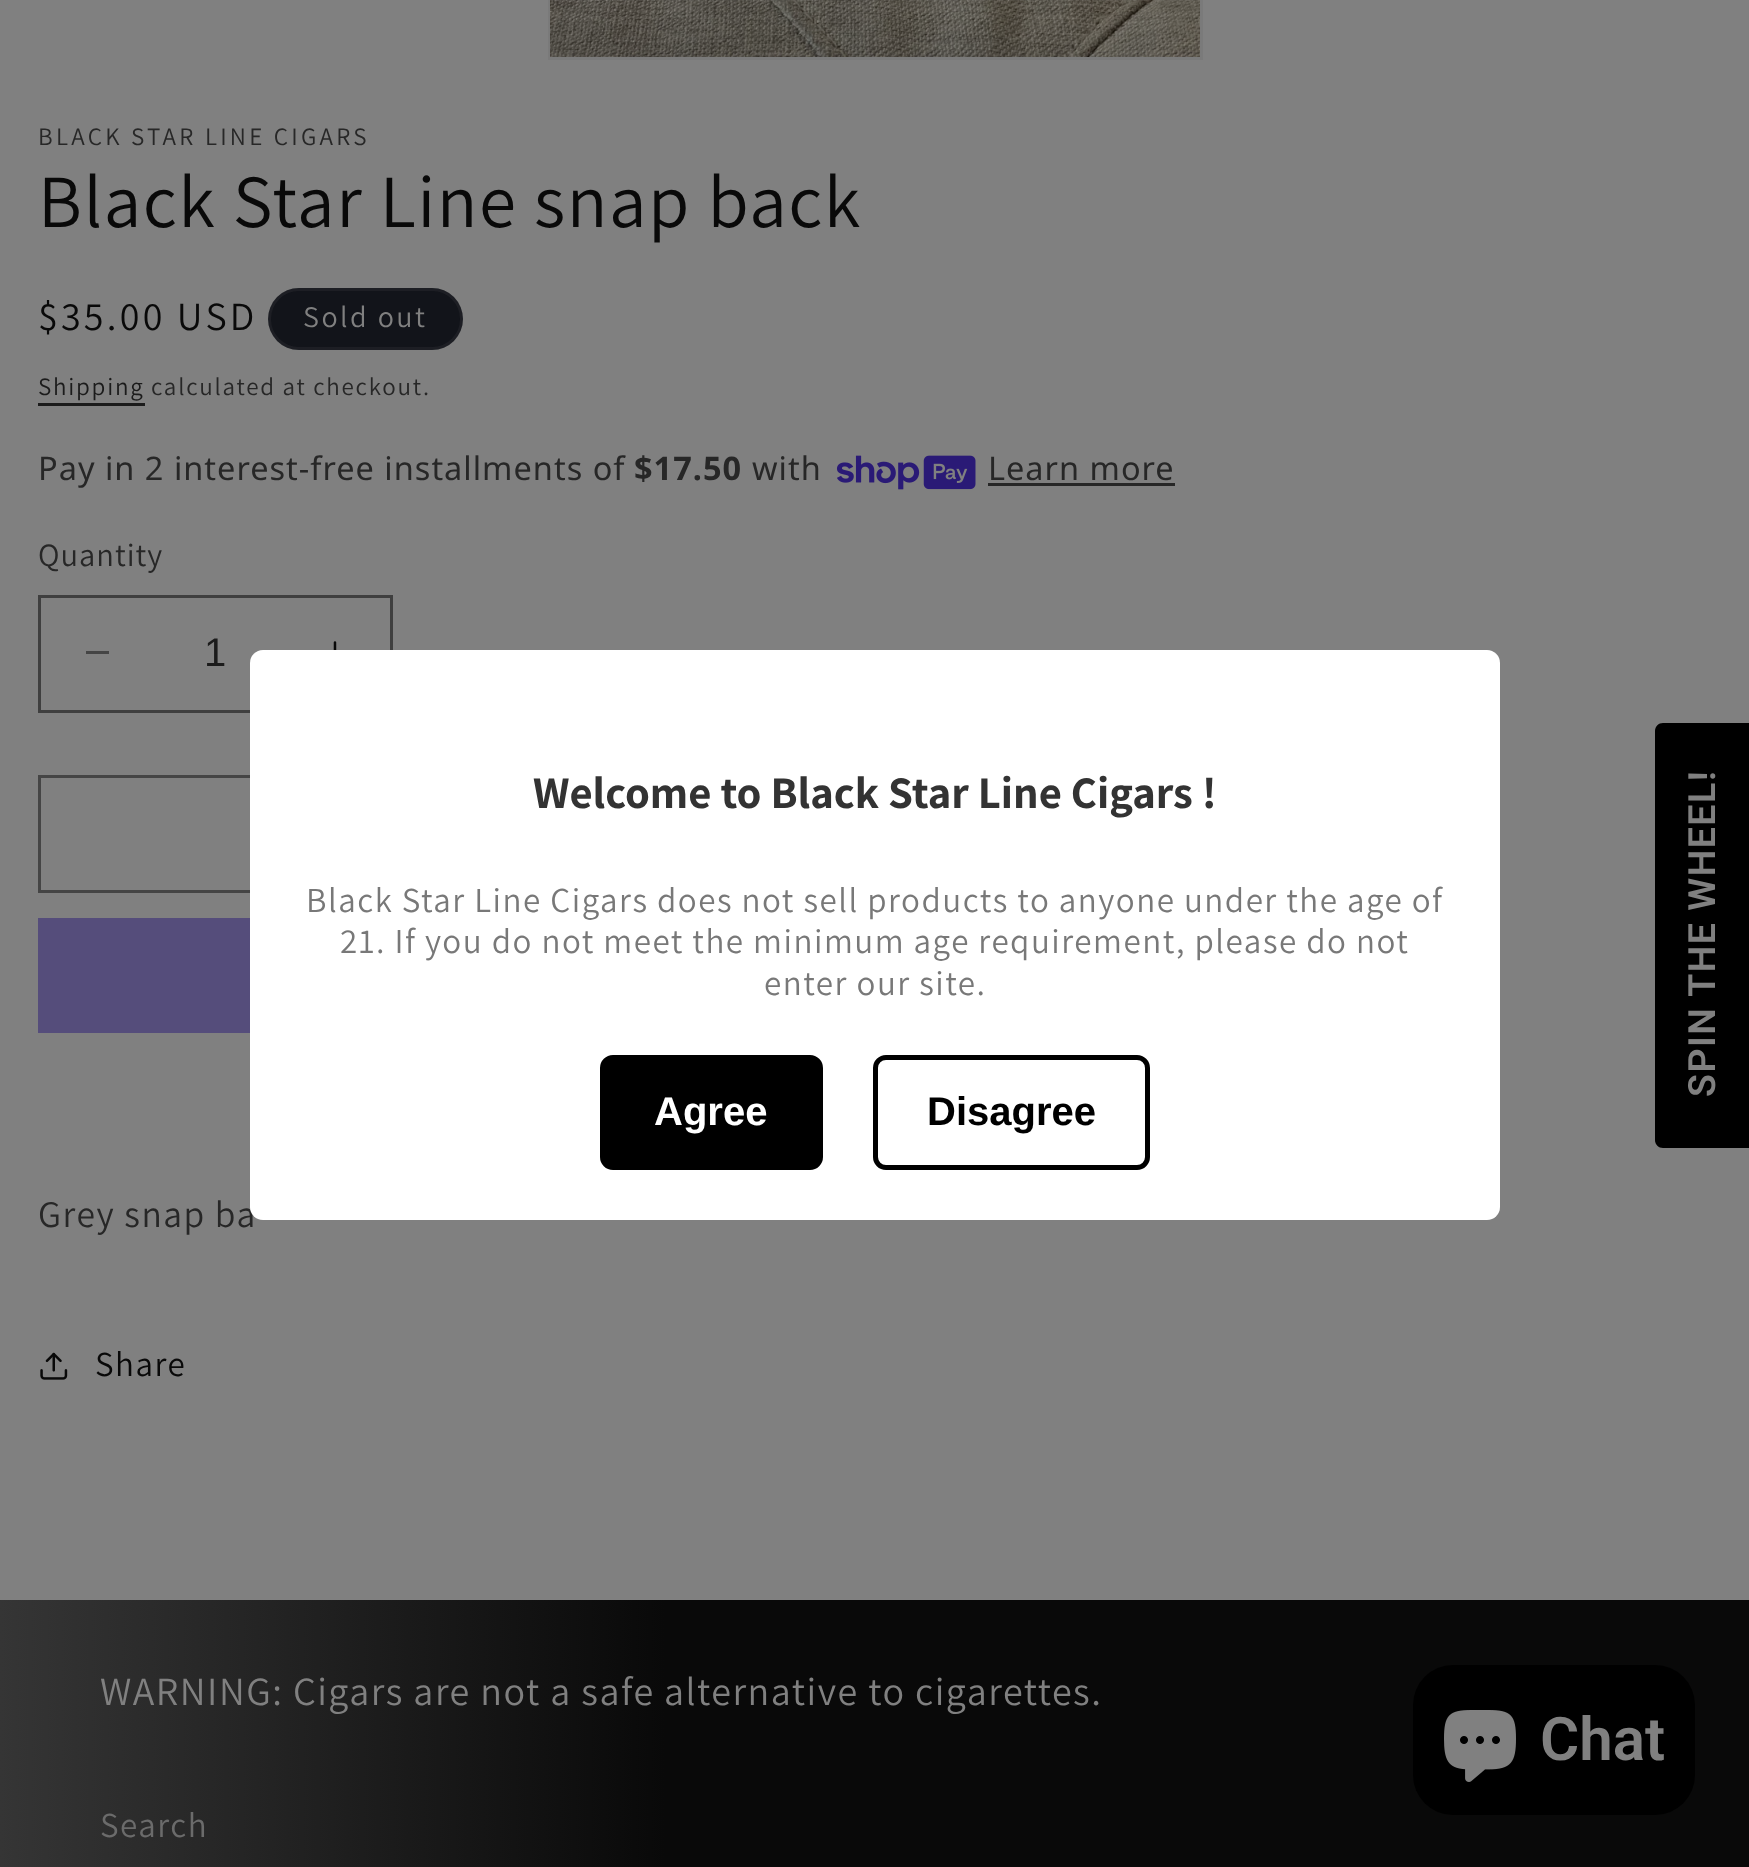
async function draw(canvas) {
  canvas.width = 1749
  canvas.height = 1867
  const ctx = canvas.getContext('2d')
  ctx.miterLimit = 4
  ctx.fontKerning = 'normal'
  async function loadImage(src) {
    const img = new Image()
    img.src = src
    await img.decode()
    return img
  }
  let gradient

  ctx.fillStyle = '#808080'
  ctx.fillRect(0, 0, 1749, 1867)
  ctx.strokeStyle = '#7a7a7a'
  ctx.lineWidth = 3
  ctx.strokeRect(549.5, -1.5, 652, 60)
  ctx.drawImage(await loadImage('image0.png'), 550, 0, 650, 57)
  ctx.fillStyle = '#80808014'
  ctx.fillRect(550, 0, 649, 1)
  ctx.letterSpacing = '3.25px'
  ctx.font = '25px Assistant'
  ctx.fillStyle = '#272727'
  ctx.fillText('BLACK STAR LINE CIGARS', 38, 145)
  ctx.letterSpacing = '1.5px'
  ctx.font = '75px Assistant'
  ctx.fillStyle = '#090909'
  ctx.fillText('Black Star Line snap back', 38, 227)
  ctx.letterSpacing = '3.25px'
  ctx.font = '40px Assistant'
  ctx.fillText('$35.00 USD', 38, 330)
  ctx.fillStyle = '#12141a'
  ctx.beginPath()
  ctx.roundRect(268, 288, 195, 62, 31)
  ctx.fill()
  ctx.beginPath()
  ctx.roundRect(269.5, 289.5, 192, 59, 29.5)
  ctx.strokeStyle = '#8080801a'
  ctx.stroke()
  ctx.letterSpacing = '2.5px'
  ctx.font = '30px Assistant'
  ctx.fillStyle = '#808080'
  ctx.fillText('Sold out', 303, 327)
  ctx.letterSpacing = '1.75px'
  ctx.font = '25px Assistant'
  ctx.fillStyle = '#1b1b1b'
  ctx.fillText('Shipping', 38, 395)
  ctx.fillRect(38, 403, 107, 3)
  ctx.fillStyle = '#272727'
  ctx.fillText('calculated at checkout.', 151, 395)
  ctx.letterSpacing = '1px'
  ctx.font = '32.5px Noto Sans'
  ctx.fillText('Pay in 2 interest-free installments of', 38, 480)
  ctx.font = 'bold 32.5px Noto Sans'
  ctx.fillText('$17.50', 634, 480)
  ctx.font = '32.5px Noto Sans'
  ctx.fillText('with', 752, 480)
  ctx.drawImage(await loadImage('image1.png'), 836, 455, 140, 35)
  ctx.fillText('Learn more', 988, 480)
  ctx.fillRect(988, 483, 187, 3)
  ctx.font = '32.5px Assistant'
  ctx.fillText('Quantity', 38, 566)
  ctx.drawImage(await loadImage('image2.png'), 333, 641, 4, 9)
  ctx.fillStyle = '#454545'
  ctx.fillRect(86, 651, 23, 3)
  ctx.strokeStyle = '#3f3f3f'
  ctx.strokeRect(39.5, 596.5, 352, 115)
  ctx.letterSpacing = '0px'
  ctx.font = '40px Liberation Sans'
  ctx.fillStyle = '#1b1b1b'
  ctx.fillText('1', 204, 666)
  ctx.strokeStyle = '#454545'
  ctx.strokeRect(39.5, 776.5, 1097, 115)
  ctx.fillStyle = '#554d7b'
  ctx.fillRect(38, 918, 212, 115)
  ctx.letterSpacing = '1.5px'
  ctx.font = '37.5px Assistant'
  ctx.fillStyle = '#272727'
  ctx.fillText('Grey snap ba', 38, 1227)
  ctx.drawImage(await loadImage('image3.png'), 40, 1352, 28, 28)
  ctx.font = '35px Assistant'
  ctx.fillStyle = '#090909'
  ctx.fillText('Share', 95, 1376)
  ctx.fillStyle = '#000'
  ctx.beginPath()
  ctx.moveTo(1663, 723)
  ctx.lineTo(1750, 723)
  ctx.lineTo(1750, 1148)
  ctx.lineTo(1663, 1148)
  ctx.bezierCurveTo(1658.5, 1148, 1655, 1144.5, 1655, 1140)
  ctx.lineTo(1655, 731)
  ctx.bezierCurveTo(1655, 726.5, 1658.5, 723, 1663, 723)
  ctx.closePath()
  ctx.fill()
  ctx.font = '600 37.5px Roboto'
  ctx.fillStyle = '#808080'
  ctx.save()
  ctx.translate(1715, 1097)
  ctx.rotate(-90 * Math.PI / 180)
  ctx.fillText('SPIN THE WHEEL!', 0, 0)
  ctx.restore()
  ctx.fillStyle = '#fff'
  ctx.beginPath()
  ctx.roundRect(250, 650, 1250, 570, 13)
  ctx.fill()
  ctx.letterSpacing = '0px'
  ctx.font = 'bold 45px Assistant'
  ctx.fillStyle = '#333'
  ctx.fillText('Welcome to Black Star Line Cigars !', 533, 808)
  ctx.letterSpacing = '1.5px'
  ctx.font = '35px Assistant'
  ctx.fillStyle = '#787878'
  ctx.fillText('Black Star Line Cigars does not sell products to anyone under the age of', 306, 912)
  ctx.fillText('21. If you do not meet the minimum age requirement, please do not', 340, 953)
  ctx.fillText('enter our site.', 764, 995)
  ctx.fillStyle = '#000'
  ctx.beginPath()
  ctx.roundRect(602.5, 1057.5, 218, 110, 10.5)
  ctx.fill()
  ctx.strokeStyle = '#000'
  ctx.lineWidth = 5
  ctx.stroke()
  ctx.letterSpacing = '0px'
  ctx.font = 'bold 40px Liberation Sans'
  ctx.fillStyle = '#fff'
  ctx.fillText('Agree', 654, 1125)
  ctx.beginPath()
  ctx.roundRect(875.5, 1057.5, 272, 110, 10.5)
  ctx.stroke()
  ctx.fillStyle = '#000'
  ctx.fillText('Disagree', 927, 1125)
  gradient = ctx.createLinearGradient(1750, 934, 0, 934)
  gradient.addColorStop(0.62, '#090909')
  gradient.addColorStop(1, '#353535')
  ctx.fillStyle = gradient
  ctx.fillRect(0, 1600, 1749, 267)
  ctx.letterSpacing = '1.5px'
  ctx.font = '40px Assistant'
  ctx.fillStyle = '#808080'
  ctx.fillText('WARNING: Cigars are not a safe alternative to cigarettes.', 100, 1705)
  ctx.font = '35px Assistant'
  ctx.fillStyle = '#6b6b6b'
  ctx.fillText('Search', 100, 1837)
  ctx.fillStyle = '#000'
  ctx.beginPath()
  ctx.roundRect(1413, 1665, 282, 150, 40)
  ctx.fill()
  ctx.drawImage(await loadImage('image4.png'), 1444, 1710, 72, 72)
  ctx.letterSpacing = '0px'
  ctx.font = '600 60px Roboto'
  ctx.fillStyle = '#808080'
  ctx.fillText('Chat', 1540, 1760)
}

draw(document.querySelector('canvas'))
